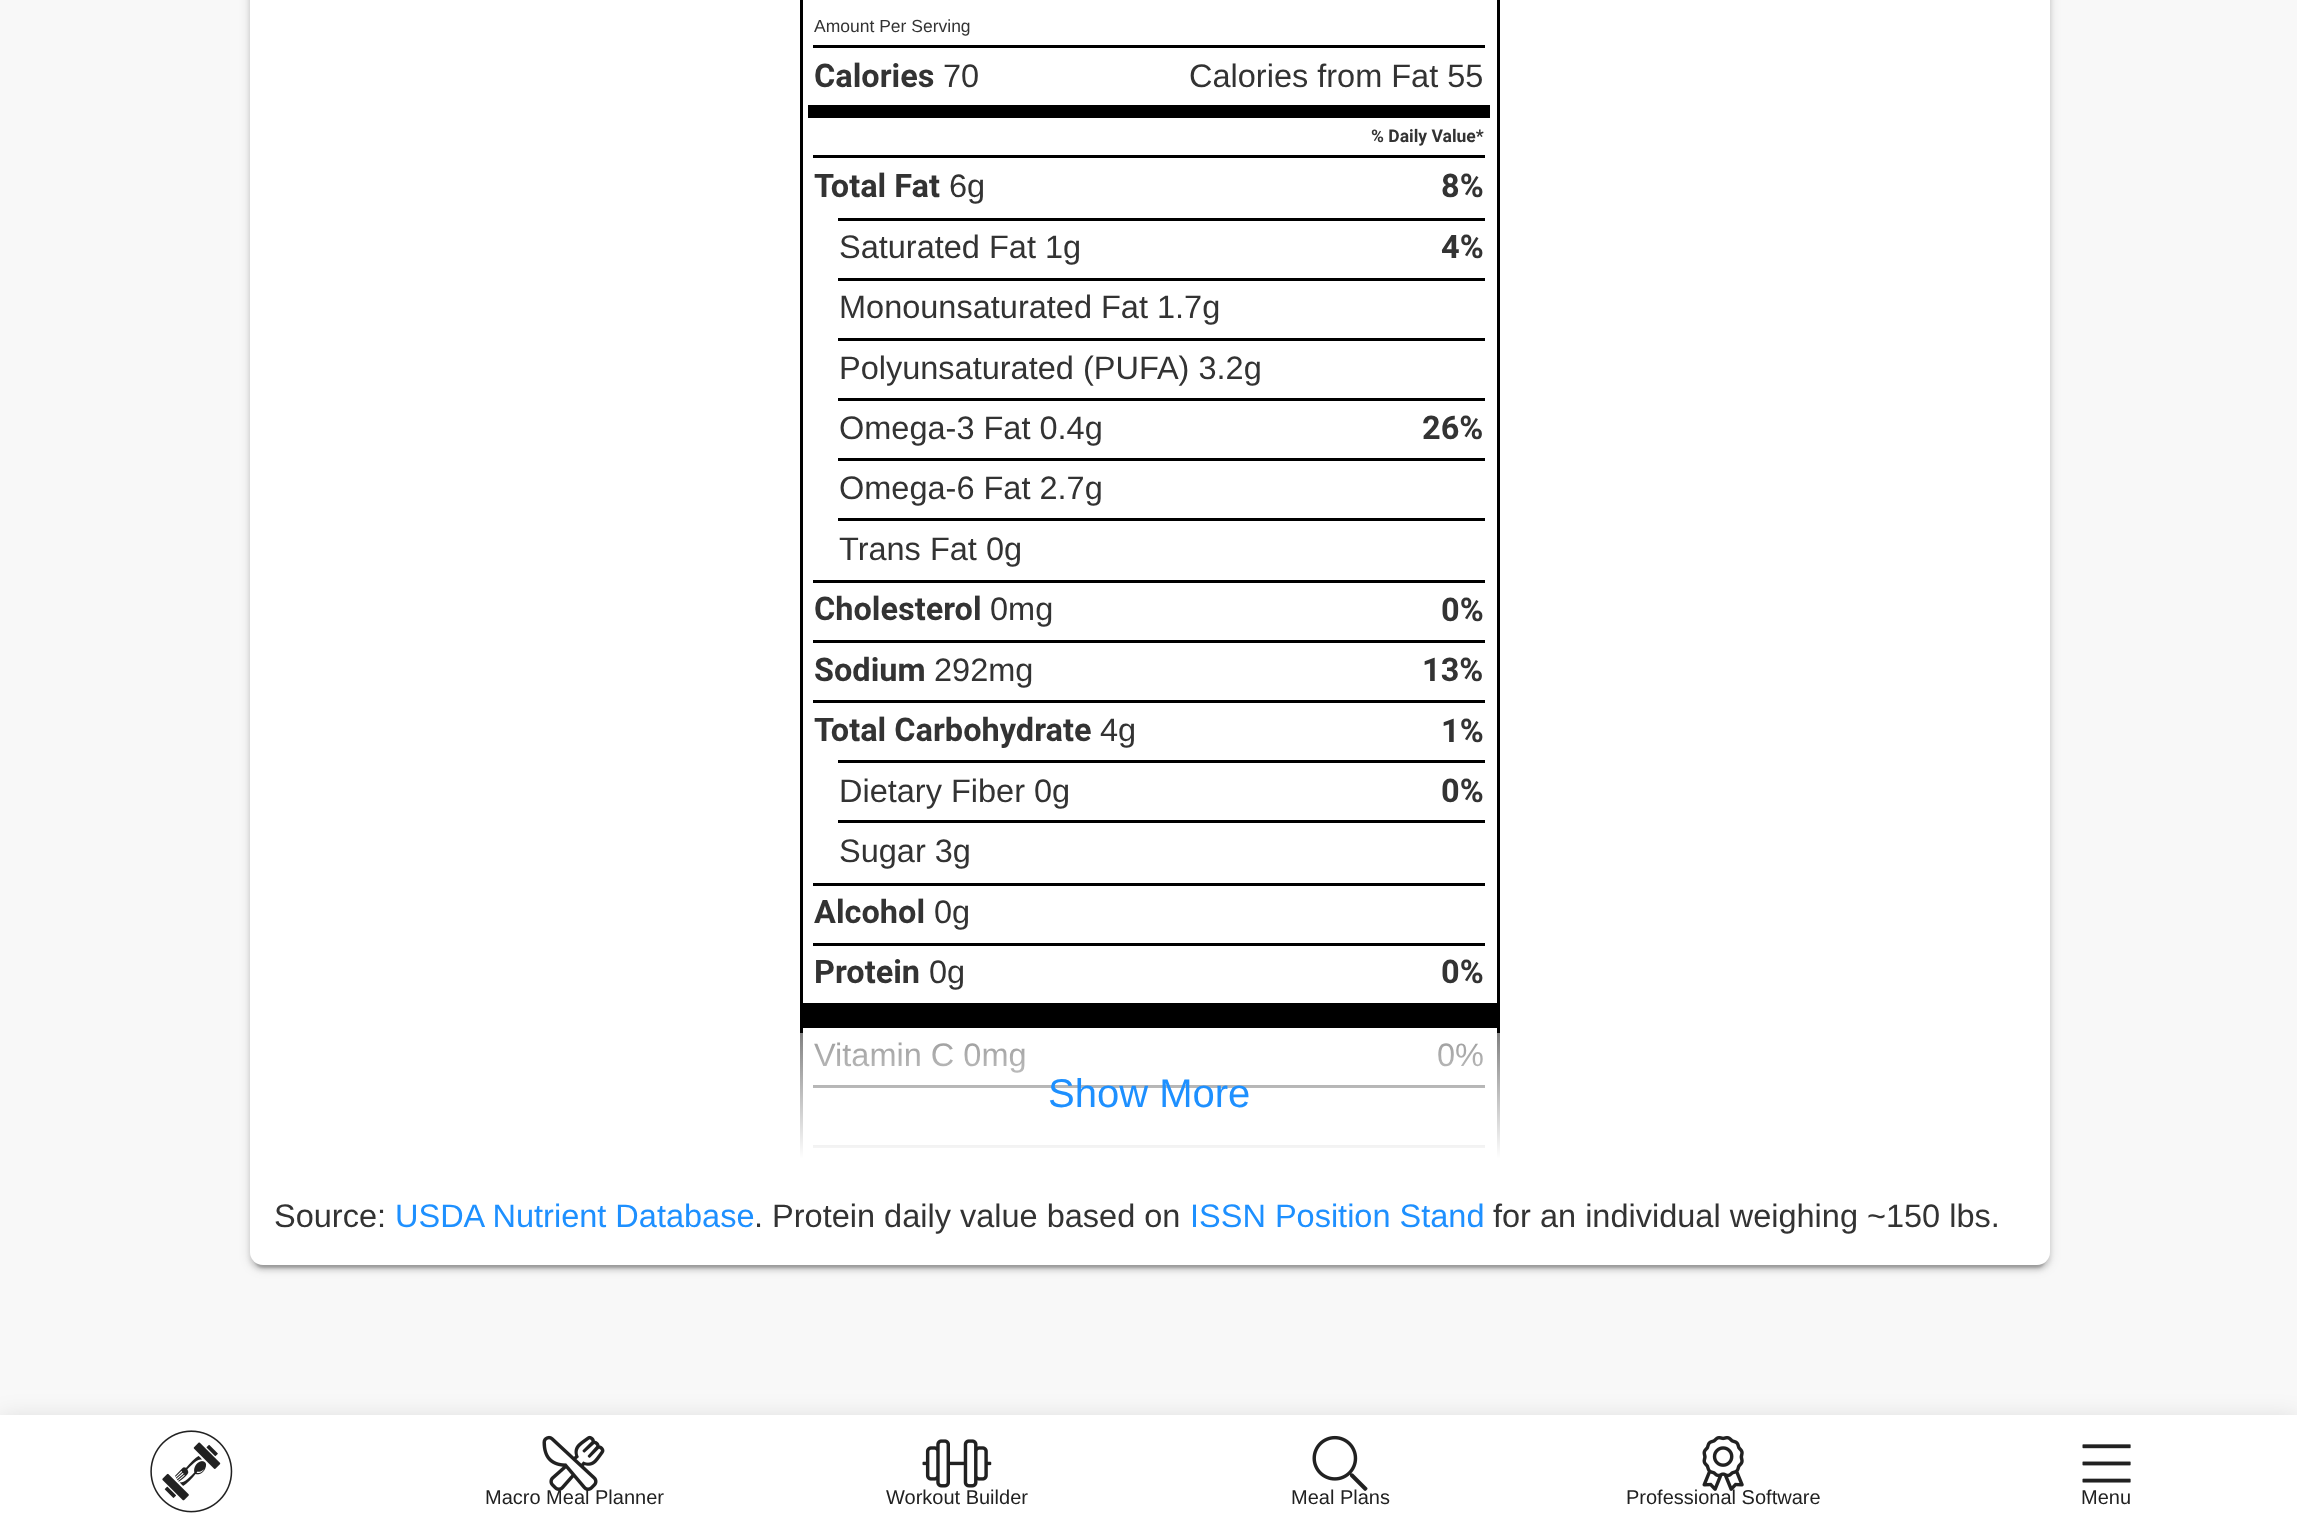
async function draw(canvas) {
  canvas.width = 2297
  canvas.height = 1525
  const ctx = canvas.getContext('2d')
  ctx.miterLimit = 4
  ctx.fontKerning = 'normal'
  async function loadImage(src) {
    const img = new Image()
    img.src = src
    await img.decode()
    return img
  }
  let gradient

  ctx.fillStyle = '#f8f8f8'
  ctx.fillRect(0, 0, 2297, 1525)
  ctx.fillStyle = '#0000001f'
  ctx.filter = 'blur(6px)'
  ctx.beginPath()
  ctx.roundRect(250, -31, 1800, 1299, 13)
  ctx.fill()
  ctx.filter = 'none'
  ctx.fillStyle = '#00000024'
  ctx.filter = 'blur(2.5px)'
  ctx.beginPath()
  ctx.roundRect(250, -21, 1800, 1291, 13)
  ctx.fill()
  ctx.filter = 'none'
  ctx.fillStyle = '#00000033'
  ctx.filter = 'blur(1px)'
  ctx.beginPath()
  ctx.roundRect(255, -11, 1790, 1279, 8)
  ctx.fill()
  ctx.filter = 'none'
  ctx.fillStyle = '#fff'
  ctx.beginPath()
  ctx.roundRect(250, -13, 1800, 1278, 13)
  ctx.fill()
  ctx.save()
  ctx.beginPath()
  ctx.rect(275, 0, 1750, 1158)
  ctx.clip()
  ctx.fillStyle = '#000'
  ctx.beginPath()
  ctx.moveTo(800, -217)
  ctx.lineTo(800, 1265)
  ctx.lineTo(803, 1265)
  ctx.lineTo(803, -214)
  ctx.lineTo(1497, -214)
  ctx.lineTo(1497, 1265)
  ctx.lineTo(1500, 1265)
  ctx.lineTo(1500, -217)
  ctx.closePath()
  ctx.fill()
  ctx.restore()
  ctx.font = '17.5px Liberation Sans'
  ctx.fillStyle = '#333'
  ctx.fillText('Amount Per Serving', 814, 32)
  ctx.font = 'bold 32.5px Roboto'
  ctx.fillText('Calories', 814, 87)
  ctx.font = '32.5px Liberation Sans'
  ctx.fillText('70', 943, 87)
  ctx.fillStyle = '#000'
  ctx.fillRect(813, 45, 672, 3)
  ctx.fillStyle = '#333'
  ctx.fillText('Calories from Fat 55', 1189, 87)
  ctx.fillStyle = '#000'
  ctx.fillRect(808, 105, 682, 13)
  ctx.font = 'bold 17.5px Roboto'
  ctx.fillStyle = '#333'
  ctx.fillText('% Daily Value*', 1371, 142)
  ctx.font = 'bold 32.5px Roboto'
  ctx.fillText('Total Fat', 814, 197)
  ctx.font = '32.5px Liberation Sans'
  ctx.fillText('6g', 949, 197)
  ctx.fillStyle = '#000'
  ctx.fillRect(813, 155, 672, 3)
  ctx.font = 'bold 32.5px Roboto'
  ctx.fillStyle = '#333'
  ctx.fillText('8%', 1441, 197)
  ctx.font = '32.5px Liberation Sans'
  ctx.fillText('Saturated Fat 1g', 839, 258)
  ctx.fillStyle = '#000'
  ctx.fillRect(838, 218, 647, 3)
  ctx.font = 'bold 32.5px Roboto'
  ctx.fillStyle = '#333'
  ctx.fillText('4%', 1441, 258)
  ctx.fillStyle = '#000'
  ctx.fillRect(838, 278, 647, 3)
  ctx.font = '32.5px Liberation Sans'
  ctx.fillStyle = '#333'
  ctx.fillText('Monounsaturated Fat 1.7g', 839, 318)
  ctx.fillStyle = '#000'
  ctx.fillRect(838, 338, 647, 3)
  ctx.fillStyle = '#333'
  ctx.fillText('Polyunsaturated (PUFA) 3.2g', 839, 379)
  ctx.fillText('Omega-3 Fat 0.4g', 839, 439)
  ctx.fillStyle = '#000'
  ctx.fillRect(838, 398, 647, 3)
  ctx.font = 'bold 32.5px Roboto'
  ctx.fillStyle = '#333'
  ctx.fillText('26%', 1422, 439)
  ctx.fillStyle = '#000'
  ctx.fillRect(838, 458, 647, 3)
  ctx.font = '32.5px Liberation Sans'
  ctx.fillStyle = '#333'
  ctx.fillText('Omega-6 Fat 2.7g', 839, 499)
  ctx.fillStyle = '#000'
  ctx.fillRect(838, 518, 647, 3)
  ctx.fillStyle = '#333'
  ctx.fillText('Trans Fat 0g', 839, 560)
  ctx.font = 'bold 32.5px Roboto'
  ctx.fillText('Cholesterol', 814, 620)
  ctx.font = '32.5px Liberation Sans'
  ctx.fillText('0mg', 990, 620)
  ctx.fillStyle = '#000'
  ctx.fillRect(813, 580, 672, 3)
  ctx.font = 'bold 32.5px Roboto'
  ctx.fillStyle = '#333'
  ctx.fillText('0%', 1441, 621)
  ctx.fillText('Sodium', 814, 681)
  ctx.font = '32.5px Liberation Sans'
  ctx.fillText('292mg', 934, 681)
  ctx.fillStyle = '#000'
  ctx.fillRect(813, 640, 672, 3)
  ctx.font = 'bold 32.5px Roboto'
  ctx.fillStyle = '#333'
  ctx.fillText('13%', 1422, 681)
  ctx.fillText('Total Carbohydrate', 814, 741)
  ctx.font = '32.5px Liberation Sans'
  ctx.fillText('4g', 1100, 741)
  ctx.fillStyle = '#000'
  ctx.fillRect(813, 700, 672, 3)
  ctx.font = 'bold 32.5px Roboto'
  ctx.fillStyle = '#333'
  ctx.fillText('1%', 1441, 742)
  ctx.font = '32.5px Liberation Sans'
  ctx.fillText('Dietary Fiber 0g', 839, 802)
  ctx.fillStyle = '#000'
  ctx.fillRect(838, 760, 647, 3)
  ctx.font = 'bold 32.5px Roboto'
  ctx.fillStyle = '#333'
  ctx.fillText('0%', 1441, 802)
  ctx.fillStyle = '#000'
  ctx.fillRect(838, 820, 647, 3)
  ctx.font = '32.5px Liberation Sans'
  ctx.fillStyle = '#333'
  ctx.fillText('Sugar 3g', 839, 862)
  ctx.fillStyle = '#000'
  ctx.fillRect(813, 883, 672, 3)
  ctx.font = 'bold 32.5px Roboto'
  ctx.fillStyle = '#333'
  ctx.fillText('Alcohol', 814, 923)
  ctx.font = '32.5px Liberation Sans'
  ctx.fillText('0g', 934, 923)
  ctx.fillStyle = '#000'
  ctx.fillRect(803, 1003, 694, 25)
  ctx.font = 'bold 32.5px Roboto'
  ctx.fillStyle = '#333'
  ctx.fillText('Protein', 814, 983)
  ctx.font = '32.5px Liberation Sans'
  ctx.fillText('0g', 929, 983)
  ctx.fillStyle = '#000'
  ctx.fillRect(813, 943, 672, 3)
  ctx.font = 'bold 32.5px Roboto'
  ctx.fillStyle = '#333'
  ctx.fillText('0%', 1441, 983)
  ctx.font = '32.5px Liberation Sans'
  ctx.fillText('Vitamin C 0mg', 814, 1066)
  ctx.fillText('0%', 1437, 1066)
  ctx.fillStyle = '#000'
  ctx.fillRect(813, 1085, 672, 3)
  ctx.fillRect(813, 1145, 672, 3)
  gradient = ctx.createLinearGradient(1150, 1032, 1150, 1158)
  gradient.addColorStop(0, '#ffffff80')
  gradient.addColorStop(1, '#fff')
  ctx.fillStyle = gradient
  ctx.fillRect(800, 1033, 700, 125)
  ctx.font = '40px Liberation Sans'
  ctx.fillStyle = '#1e90ff'
  ctx.fillText('Show More', 1048, 1107)
  ctx.font = '32.5px Liberation Sans'
  ctx.fillStyle = '#333'
  ctx.fillText('Source:', 274, 1227)
  ctx.fillStyle = '#1e90ff'
  ctx.fillText('USDA Nutrient Database', 395, 1227)
  ctx.fillStyle = '#333'
  ctx.fillText('. Protein daily value based on', 754, 1227)
  ctx.fillStyle = '#1e90ff'
  ctx.fillText('ISSN Position Stand', 1190, 1227)
  ctx.fillStyle = '#333'
  ctx.fillText('for an individual weighing ~150 lbs.', 1493, 1227)
  ctx.fillStyle = '#0000001f'
  ctx.filter = 'blur(12.5px)'
  ctx.beginPath()
  ctx.rect(0, 1418, 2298, 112)
  ctx.fill()
  ctx.filter = 'none'
  ctx.fillStyle = '#fff'
  ctx.fillRect(0, 1415, 2297, 110)
  ctx.drawImage(await loadImage('image0.png'), 150, 1430, 83, 83)
  ctx.drawImage(await loadImage('image1.png'), 542, 1435, 63, 56)
  ctx.font = '20px Liberation Sans'
  ctx.fillStyle = '#212121'
  ctx.fillText('Macro Meal Planner', 485, 1504)
  ctx.drawImage(await loadImage('image2.png'), 922, 1439, 70, 49)
  ctx.fillText('Workout Builder', 886, 1504)
  ctx.drawImage(await loadImage('image3.png'), 1312, 1435, 56, 56)
  ctx.fillText('Meal Plans', 1291, 1504)
  ctx.drawImage(await loadImage('image4.png'), 1702, 1435, 42, 56)
  ctx.fillText('Professional Software', 1626, 1504)
  ctx.drawImage(await loadImage('image5.png'), 2082, 1444, 49, 39)
  ctx.fillText('Menu', 2081, 1504)
}

draw(document.querySelector('canvas'))
